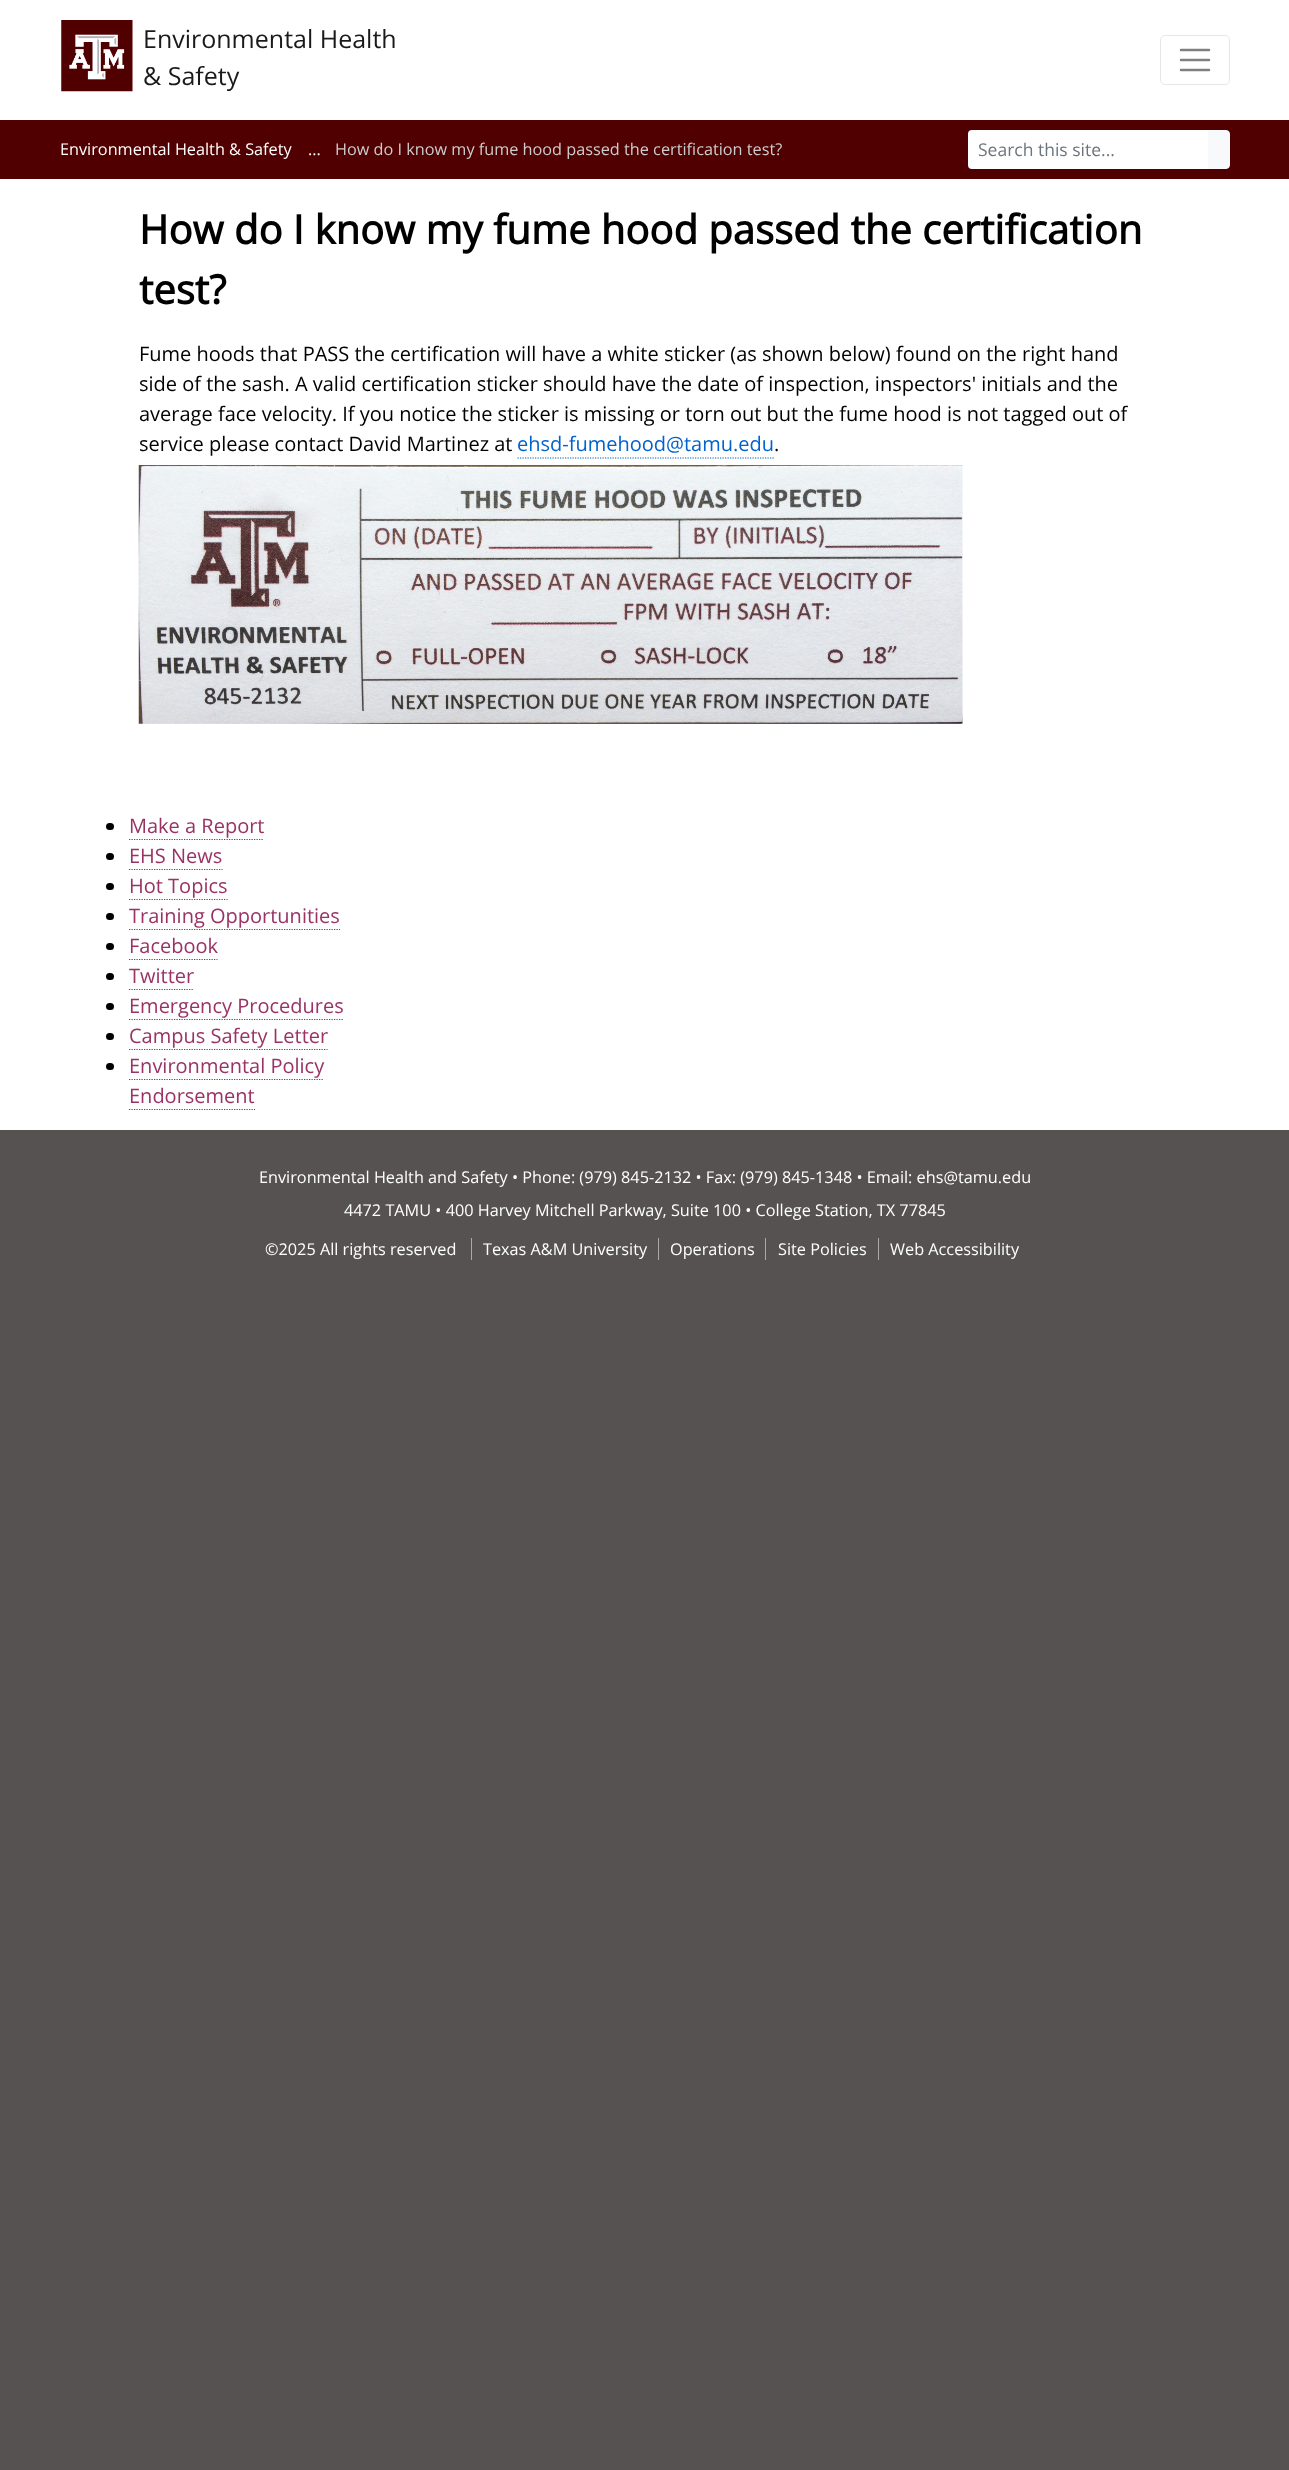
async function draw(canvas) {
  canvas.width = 1289
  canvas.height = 2470
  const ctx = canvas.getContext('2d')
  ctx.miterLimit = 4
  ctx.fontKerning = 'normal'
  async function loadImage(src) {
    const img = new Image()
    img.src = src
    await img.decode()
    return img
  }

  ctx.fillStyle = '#565252'
  ctx.fillRect(0, 0, 1289, 2470)
  ctx.fillStyle = '#fff'
  ctx.fillRect(0, 0, 1289, 120)
  ctx.drawImage(await loadImage('image0.png'), 61, 20, 72, 72)
  ctx.font = '25px Open Sans'
  ctx.fillStyle = '#1a1a1a'
  ctx.fillText('Environmental Health', 143, 48)
  ctx.fillText('& Safety', 143, 85)
  ctx.beginPath()
  ctx.roundRect(1160.5, 35.5, 69, 49, 4.5)
  ctx.strokeStyle = '#e6e6e6'
  ctx.stroke()
  ctx.beginPath()
  ctx.moveTo(1181, 50)
  ctx.lineTo(1209, 50)
  ctx.moveTo(1181, 60)
  ctx.lineTo(1209, 60)
  ctx.moveTo(1181, 70)
  ctx.lineTo(1209, 70)
  ctx.strokeStyle = '#808080'
  ctx.lineWidth = 2.5
  ctx.lineCap = 'round'
  ctx.stroke()
  ctx.fillStyle = '#500000'
  ctx.fillRect(0, 120, 1289, 59)
  ctx.font = '16.25px Open Sans'
  ctx.fillStyle = '#fff'
  ctx.fillText('Environmental Health & Safety', 60, 155)
  ctx.fillText('...', 308, 155)
  ctx.fillStyle = '#ccc'
  ctx.fillText('How do I know my fume hood passed the certification test?', 335, 155)
  ctx.fillStyle = '#fff'
  ctx.beginPath()
  ctx.roundRect(968, 130, 241, 39, [4, 0, 0, 4])
  ctx.fill()
  ctx.font = '17.5px Open Sans'
  ctx.fillStyle = '#6c757d'
  ctx.fillText('Search this site...', 978, 156)
  ctx.fillStyle = '#f8f9fa'
  ctx.beginPath()
  ctx.roundRect(1208.5, 130.5, 21, 38, [0, 3.5, 3.5, 0])
  ctx.fill()
  ctx.strokeStyle = '#f8f9fa'
  ctx.lineWidth = 1
  ctx.stroke()
  ctx.fillStyle = '#fff'
  ctx.fillRect(0, 179, 1289, 951)
  ctx.font = 'bold 40px Open Sans'
  ctx.fillStyle = '#000'
  ctx.fillText('How do I know my fume hood passed the certification', 139, 244)
  ctx.fillText('test?', 139, 304)
  ctx.font = '20px Open Sans'
  ctx.fillText('Fume hoods that PASS the certification will have a white sticker (as shown below) found on the right hand', 139, 361)
  ctx.fillText('side of the sash. A valid certification sticker should have the date of inspection, inspectors\' initials and the', 139, 391)
  ctx.fillText('average face velocity. If you notice the sticker is missing or torn out but the fume hood is not tagged out of', 139, 421)
  ctx.fillText('service please contact David Martinez at', 139, 451)
  ctx.fillStyle = '#0062cc'
  ctx.fillText('ehsd-fumehood@tamu.edu', 517, 451)
  ctx.fillStyle = '#000'
  ctx.fillText('.', 774, 451)
  ctx.beginPath()
  ctx.moveTo(517.5, 458)
  ctx.lineTo(774, 458)
  ctx.strokeStyle = '#0062cc'
  ctx.lineWidth = 1.2
  ctx.lineCap = 'butt'
  ctx.setLineDash([1.25, 1.25])
  ctx.stroke()
  ctx.drawImage(await loadImage('image1.png'), 138, 465, 825, 259)
  ctx.beginPath()
  ctx.roundRect(106, 823, 8, 7, 3.5)
  ctx.fill()
  ctx.fillStyle = '#936'
  ctx.fillText('Make a Report', 129, 833)
  ctx.beginPath()
  ctx.moveTo(129, 839.5)
  ctx.lineTo(264, 839.5)
  ctx.stroke()
  ctx.fillStyle = '#000'
  ctx.beginPath()
  ctx.roundRect(106, 853, 8, 7, 3.5)
  ctx.fill()
  ctx.fillStyle = '#936'
  ctx.fillText('EHS News', 129, 863)
  ctx.beginPath()
  ctx.moveTo(129, 869.5)
  ctx.lineTo(222.5, 869.5)
  ctx.stroke()
  ctx.fillStyle = '#000'
  ctx.beginPath()
  ctx.roundRect(106, 883, 8, 7, 3.5)
  ctx.fill()
  ctx.fillStyle = '#936'
  ctx.fillText('Hot Topics', 129, 893)
  ctx.beginPath()
  ctx.moveTo(129, 899.5)
  ctx.lineTo(227.5, 899.5)
  ctx.stroke()
  ctx.fillStyle = '#000'
  ctx.beginPath()
  ctx.roundRect(106, 913, 8, 7, 3.5)
  ctx.fill()
  ctx.fillStyle = '#936'
  ctx.fillText('Training Opportunities', 129, 923)
  ctx.beginPath()
  ctx.moveTo(129, 929.5)
  ctx.lineTo(340, 929.5)
  ctx.stroke()
  ctx.fillStyle = '#000'
  ctx.beginPath()
  ctx.roundRect(106, 943, 8, 7, 3.5)
  ctx.fill()
  ctx.fillStyle = '#936'
  ctx.fillText('Facebook', 129, 953)
  ctx.beginPath()
  ctx.moveTo(129, 959.5)
  ctx.lineTo(217.5, 959.5)
  ctx.stroke()
  ctx.fillStyle = '#000'
  ctx.beginPath()
  ctx.roundRect(106, 973, 8, 7, 3.5)
  ctx.fill()
  ctx.fillStyle = '#936'
  ctx.fillText('Twitter', 129, 983)
  ctx.beginPath()
  ctx.moveTo(129, 989.5)
  ctx.lineTo(194, 989.5)
  ctx.stroke()
  ctx.fillStyle = '#000'
  ctx.beginPath()
  ctx.roundRect(106, 1003, 8, 7, 3.5)
  ctx.fill()
  ctx.fillStyle = '#936'
  ctx.fillText('Emergency Procedures', 129, 1013)
  ctx.beginPath()
  ctx.moveTo(129, 1019.5)
  ctx.lineTo(344, 1019.5)
  ctx.stroke()
  ctx.fillStyle = '#000'
  ctx.beginPath()
  ctx.roundRect(106, 1033, 8, 7, 3.5)
  ctx.fill()
  ctx.fillStyle = '#936'
  ctx.fillText('Campus Safety Letter', 129, 1043)
  ctx.beginPath()
  ctx.moveTo(129, 1049.5)
  ctx.lineTo(327.5, 1049.5)
  ctx.stroke()
  ctx.fillStyle = '#000'
  ctx.beginPath()
  ctx.roundRect(106, 1063, 8, 7, 3.5)
  ctx.fill()
  ctx.fillStyle = '#936'
  ctx.fillText('Environmental Policy', 129, 1073)
  ctx.beginPath()
  ctx.moveTo(129, 1079.5)
  ctx.lineTo(324, 1079.5)
  ctx.stroke()
  ctx.fillText('Endorsement', 129, 1103)
  ctx.beginPath()
  ctx.moveTo(129, 1109.5)
  ctx.lineTo(255, 1109.5)
  ctx.stroke()
  ctx.font = '16.25px Open Sans'
  ctx.fillStyle = '#fff'
  ctx.fillText('Environmental Health and Safety • Phone: (979) 845-2132 • Fax: (979) 845-1348 • Email: ehs@tamu.edu', 259, 1183)
  ctx.fillText('4472 TAMU • 400 Harvey Mitchell Parkway, Suite 100 • College Station, TX 77845', 344, 1216)
  ctx.fillText('©2025 All rights reserved', 265, 1255)
  ctx.fillText('Texas A&M University', 483, 1255)
  ctx.fillStyle = '#aaa'
  ctx.fillRect(471, 1238, 1, 22)
  ctx.fillStyle = '#fff'
  ctx.fillText('Operations', 670, 1255)
  ctx.fillStyle = '#aaa'
  ctx.fillRect(658, 1238, 1, 22)
  ctx.fillStyle = '#fff'
  ctx.fillText('Site Policies', 778, 1255)
  ctx.fillStyle = '#aaa'
  ctx.fillRect(765, 1238, 1, 22)
  ctx.fillStyle = '#fff'
  ctx.fillText('Web Accessibility', 890, 1255)
  ctx.fillStyle = '#aaa'
  ctx.fillRect(878, 1238, 1, 22)
}

draw(document.querySelector('canvas'))
